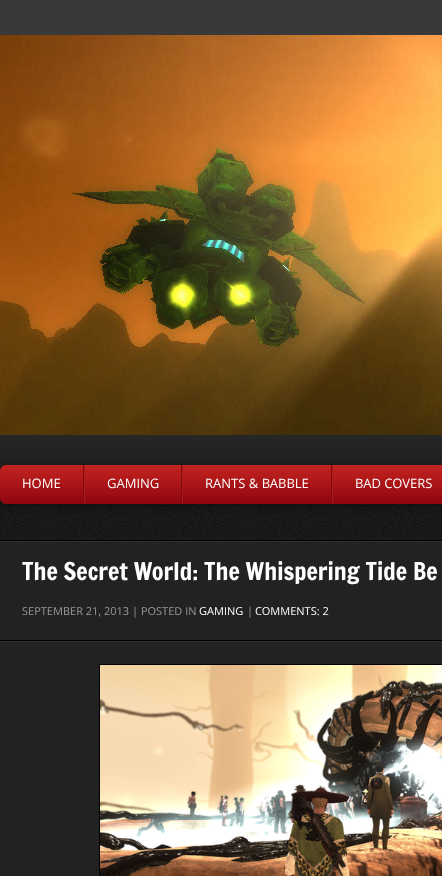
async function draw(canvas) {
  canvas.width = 442
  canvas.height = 876
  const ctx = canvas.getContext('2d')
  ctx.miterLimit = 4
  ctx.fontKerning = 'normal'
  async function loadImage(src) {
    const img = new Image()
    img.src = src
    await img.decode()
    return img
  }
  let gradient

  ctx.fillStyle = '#fff'
  ctx.fillRect(0, 0, 442, 876)
  ctx.drawImage(await loadImage('image0.png'), 0, 498, 442, 42)
  ctx.fillStyle = '#393939'
  ctx.fillRect(0, 0, 442, 35)
  ctx.drawImage(await loadImage('image1.png'), 0, 435, 442, 36)
  ctx.drawImage(await loadImage('image2.png'), 0, 35, 442, 400)
  ctx.fillStyle = '#00000059'
  ctx.filter = 'blur(5px)'
  ctx.beginPath()
  ctx.roundRect(0, 467, 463, 39, 6)
  ctx.fill()
  ctx.filter = 'none'
  gradient = ctx.createLinearGradient(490, 465, 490, 504)
  gradient.addColorStop(0, '#c32420')
  gradient.addColorStop(1, '#8f050e')
  ctx.fillStyle = gradient
  ctx.beginPath()
  ctx.roundRect(0, 465, 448, 39, 6)
  ctx.fill()
  ctx.fillStyle = '#7b0d0f'
  ctx.fillRect(83, 465, 1, 39)
  ctx.font = '13px Open Sans'
  ctx.fillStyle = '#fff'
  ctx.fillText('HOME', 22, 488)
  ctx.fillStyle = '#7b0d0f'
  ctx.fillRect(181, 465, 1, 39)
  ctx.fillStyle = '#b11719'
  ctx.beginPath()
  ctx.moveTo(84, 504)
  ctx.lineTo(84, 465)
  ctx.lineTo(85, 465)
  ctx.lineTo(85, 503)
  ctx.closePath()
  ctx.fill()
  ctx.fillStyle = '#fff'
  ctx.fillText('GAMING', 107, 488)
  ctx.fillStyle = '#7b0d0f'
  ctx.fillRect(331, 465, 1, 39)
  ctx.fillStyle = '#b11719'
  ctx.beginPath()
  ctx.moveTo(182, 504)
  ctx.lineTo(182, 465)
  ctx.lineTo(183, 465)
  ctx.lineTo(183, 503)
  ctx.closePath()
  ctx.fill()
  ctx.fillStyle = '#fff'
  ctx.fillText('RANTS & BABBLE', 205, 488)
  ctx.fillStyle = '#b11719'
  ctx.beginPath()
  ctx.moveTo(332, 504)
  ctx.lineTo(332, 465)
  ctx.lineTo(333, 465)
  ctx.lineTo(333, 503)
  ctx.closePath()
  ctx.fill()
  ctx.fillStyle = '#fff'
  ctx.fillText('BAD COVERS', 355, 488)
  ctx.fillStyle = '#222'
  ctx.fillRect(0, 542, 442, 334)
  ctx.drawImage(await loadImage('image3.png'), 0, 540, 442, 2)
  ctx.font = '24px Francois One'
  ctx.fillStyle = '#fff'
  ctx.fillText('The Secret World: The Whispering Tide Be', 22, 580)
  ctx.font = '11px Open Sans'
  ctx.fillStyle = '#999'
  ctx.fillText('SEPTEMBER 21, 2013 | POSTED IN', 22, 615)
  ctx.fillStyle = '#fff'
  ctx.fillText('GAMING', 199, 615)
  ctx.fillStyle = '#999'
  ctx.fillText('|', 247, 615)
  ctx.fillStyle = '#fff'
  ctx.fillText('COMMENTS: 2', 255, 615)
  ctx.drawImage(await loadImage('image3.png'), 0, 640, 442, 2)
  ctx.strokeStyle = '#000'
  ctx.strokeRect(99.5, 664.5, 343, 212)
  ctx.drawImage(await loadImage('image4.png'), 100, 665, 342, 211)
}

draw(document.querySelector('canvas'))
